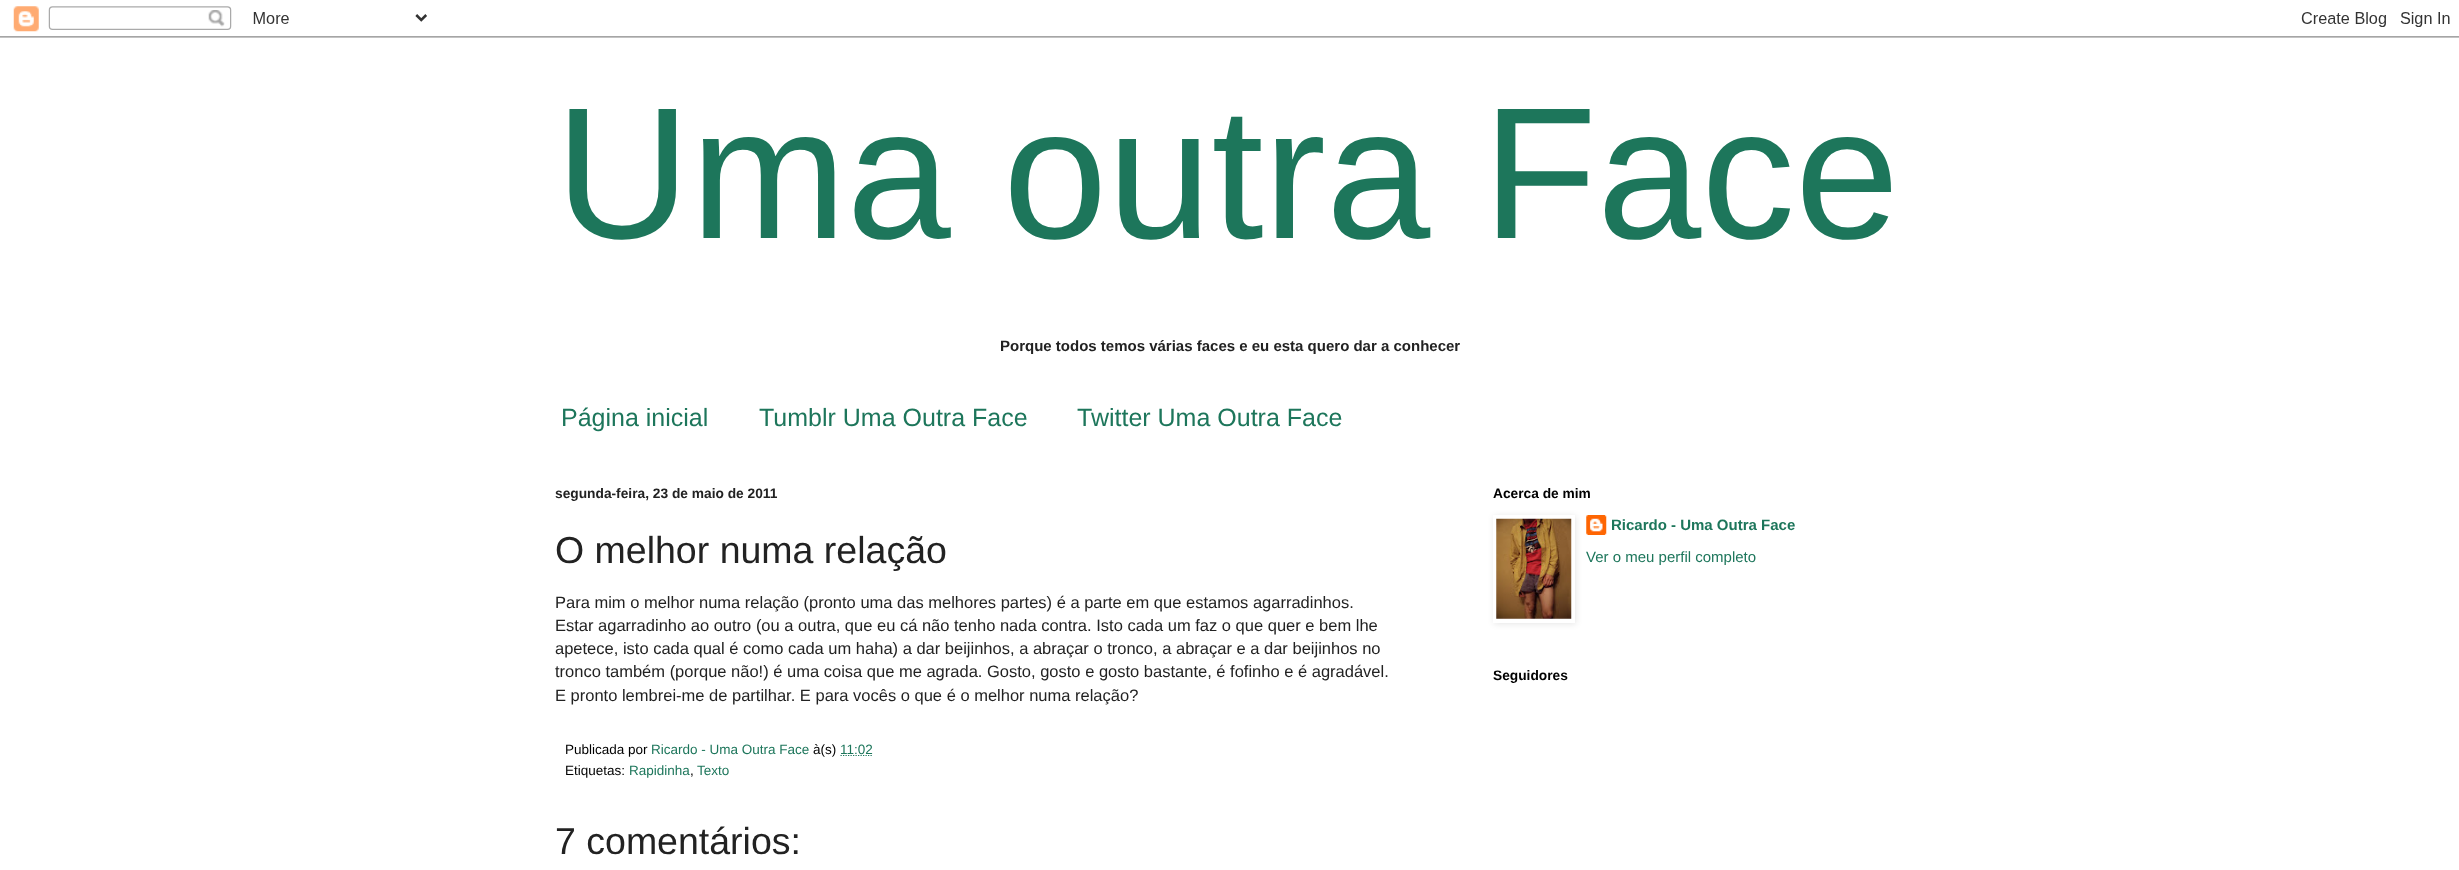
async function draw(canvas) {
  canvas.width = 2459
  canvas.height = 870
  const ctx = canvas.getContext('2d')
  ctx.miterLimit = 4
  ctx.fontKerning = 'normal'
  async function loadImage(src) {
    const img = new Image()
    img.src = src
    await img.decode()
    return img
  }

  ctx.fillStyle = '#fff'
  ctx.fillRect(0, 0, 2459, 870)
  ctx.drawImage(await loadImage('image0.png'), 0, 6, 2459, 32)
  ctx.font = '187.5px Liberation Sans'
  ctx.fillStyle = '#1d765b'
  ctx.fillText('Uma outra Face', 555, 238)
  ctx.font = 'bold 15px Liberation Sans'
  ctx.fillStyle = '#222'
  ctx.fillText('Porque todos temos várias faces e eu esta quero dar a conhecer', 1000, 351)
  ctx.font = '25px Liberation Sans'
  ctx.fillStyle = '#1d765b'
  ctx.fillText('Página inicial', 561, 426)
  ctx.fillText('Tumblr Uma Outra Face', 759, 426)
  ctx.fillText('Twitter Uma Outra Face', 1077, 426)
  ctx.font = 'bold 13.75px Liberation Sans'
  ctx.fillStyle = '#222'
  ctx.fillText('segunda-feira, 23 de maio de 2011', 555, 498)
  ctx.font = '37.5px Liberation Sans'
  ctx.fillText('O melhor numa relação', 555, 563)
  ctx.font = '16.5px Liberation Sans'
  ctx.fillText('Para mim o melhor numa relação (pronto uma das melhores partes) é a parte em que estamos agarradinhos.', 555, 608)
  ctx.fillText('Estar agarradinho ao outro (ou a outra, que eu cá não tenho nada contra. Isto cada um faz o que quer e bem lhe', 555, 631)
  ctx.fillText('apetece, isto cada qual é como cada um haha) a dar beijinhos, a abraçar o tronco, a abraçar e a dar beijinhos no', 555, 654)
  ctx.fillText('tronco também (porque não!) é uma coisa que me agrada. Gosto, gosto e gosto bastante, é fofinho e é agradável.', 555, 677)
  ctx.fillText('E pronto lembrei-me de partilhar. E para vocês o que é o melhor numa relação?', 555, 701)
  ctx.font = '13.5px Liberation Sans'
  ctx.fillStyle = '#000'
  ctx.fillText('Publicada por', 565, 754)
  ctx.fillStyle = '#1d765b'
  ctx.fillText('Ricardo - Uma Outra Face', 651, 754)
  ctx.fillStyle = '#000'
  ctx.fillText('à(s)', 813, 754)
  ctx.beginPath()
  ctx.moveTo(840.5, 755.5)
  ctx.lineTo(873, 755.5)
  ctx.strokeStyle = '#1d765b'
  ctx.lineWidth = 1.2
  ctx.setLineDash([1.25, 1.25])
  ctx.stroke()
  ctx.fillStyle = '#1d765b'
  ctx.fillText('11:02', 840, 754)
  ctx.fillStyle = '#000'
  ctx.fillText('Etiquetas:', 565, 775)
  ctx.fillStyle = '#1d765b'
  ctx.fillText('Rapidinha', 629, 775)
  ctx.fillStyle = '#000'
  ctx.fillText(',', 690, 775)
  ctx.fillStyle = '#1d765b'
  ctx.fillText('Texto', 697, 775)
  ctx.font = '37.5px Liberation Sans'
  ctx.fillStyle = '#222'
  ctx.fillText('7 comentários:', 555, 854)
  ctx.font = 'bold 13.75px Liberation Sans'
  ctx.fillStyle = '#000'
  ctx.fillText('Acerca de mim', 1493, 498)
  ctx.save()
  ctx.beginPath()
  ctx.moveTo(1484, 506)
  ctx.lineTo(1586, 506)
  ctx.lineTo(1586, 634)
  ctx.lineTo(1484, 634)
  ctx.closePath()
  ctx.moveTo(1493, 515)
  ctx.lineTo(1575, 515)
  ctx.lineTo(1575, 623)
  ctx.lineTo(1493, 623)
  ctx.closePath()
  ctx.clip('evenodd')
  ctx.fillStyle = '#0000001a'
  ctx.filter = 'blur(3px)'
  ctx.beginPath()
  ctx.rect(1494, 516, 82, 108)
  ctx.fill()
  ctx.filter = 'none'
  ctx.restore()
  ctx.drawImage(await loadImage('image1.png'), 1496, 518, 76, 101)
  ctx.drawImage(await loadImage('image2.png'), 1586, 515, 21, 20)
  ctx.font = 'bold 15px Liberation Sans'
  ctx.fillStyle = '#1d765b'
  ctx.fillText('Ricardo - Uma Outra Face', 1611, 530)
  ctx.font = '15px Liberation Sans'
  ctx.fillText('Ver o meu perfil completo', 1586, 562)
  ctx.font = 'bold 13.75px Liberation Sans'
  ctx.fillStyle = '#000'
  ctx.fillText('Seguidores', 1493, 680)
}

draw(document.querySelector('canvas'))
